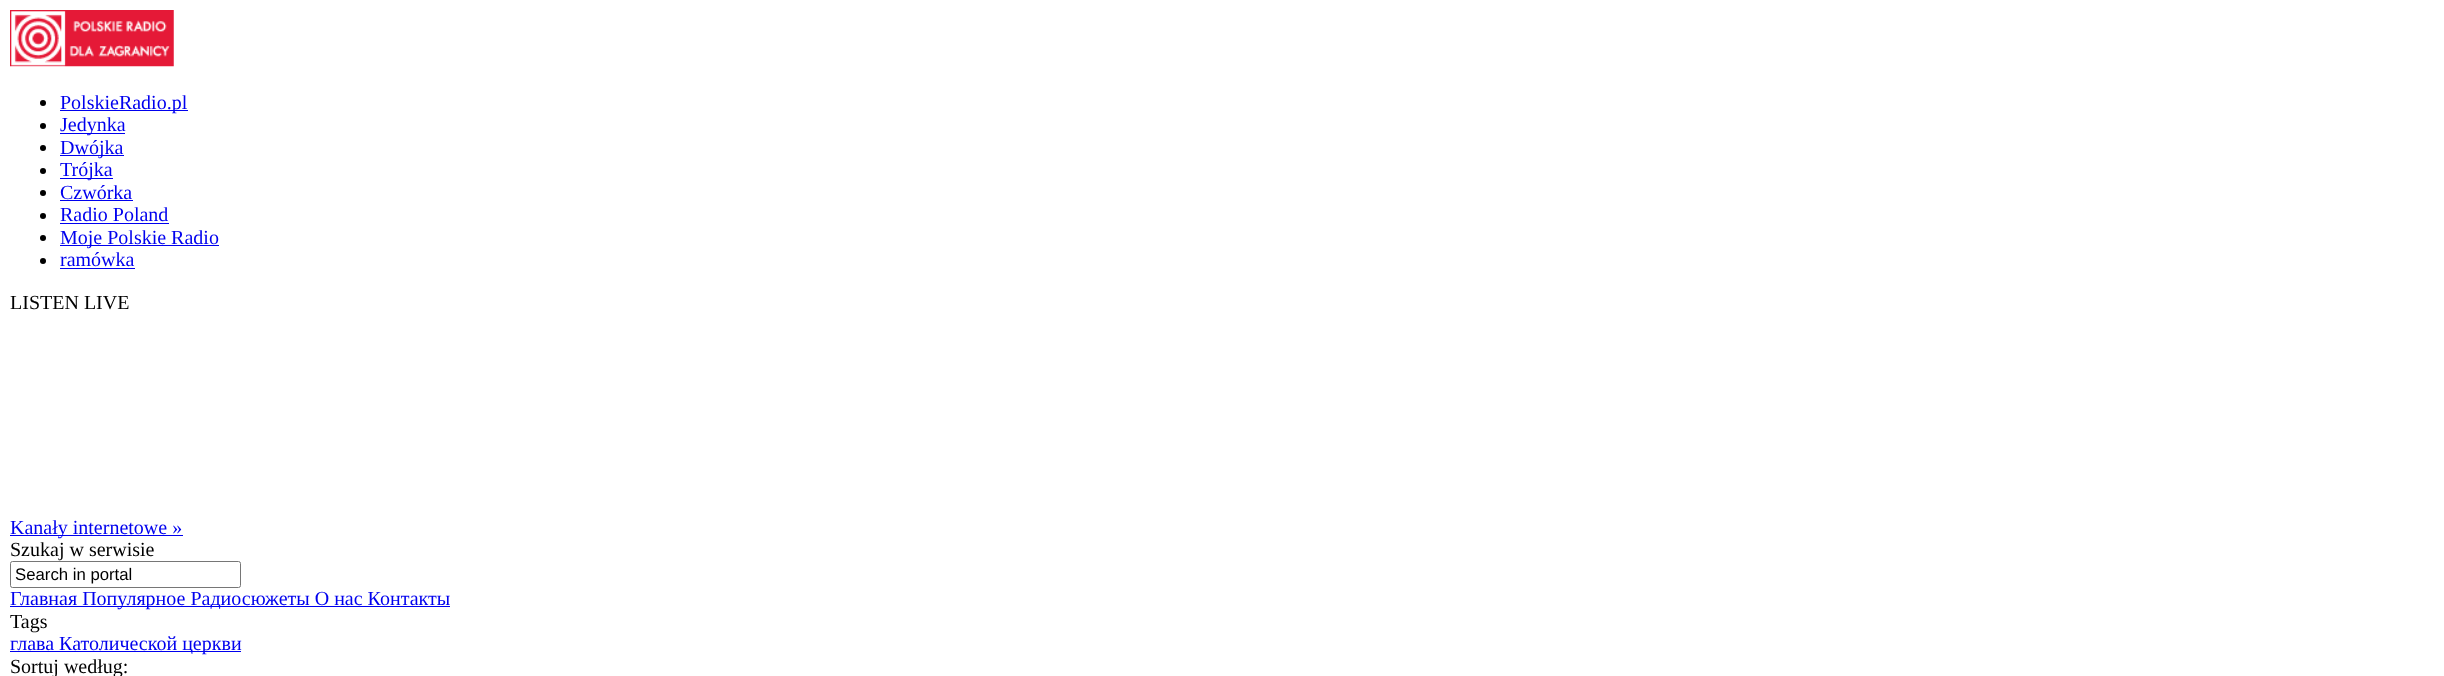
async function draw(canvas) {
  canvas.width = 2444
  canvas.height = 676
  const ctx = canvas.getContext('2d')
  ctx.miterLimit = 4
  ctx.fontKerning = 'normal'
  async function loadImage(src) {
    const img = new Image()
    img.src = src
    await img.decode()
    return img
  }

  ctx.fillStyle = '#fff'
  ctx.fillRect(0, 0, 2444, 676)
  ctx.drawImage(await loadImage('image0.png'), 10, 10, 164, 57)
  ctx.fillStyle = '#000'
  ctx.beginPath()
  ctx.arc(43, 103, 3, 0, 2 * Math.PI)
  ctx.fill()
  ctx.fillStyle = '#00e'
  ctx.fillRect(60, 110, 128, 1)
  ctx.font = '20px Liberation Serif'
  ctx.fillText('PolskieRadio.pl', 60, 109)
  ctx.fillStyle = '#000'
  ctx.beginPath()
  ctx.arc(43, 126, 3, 0, 2 * Math.PI)
  ctx.fill()
  ctx.fillStyle = '#00e'
  ctx.fillRect(60, 133, 65, 1)
  ctx.fillText('Jedynka', 60, 131)
  ctx.fillStyle = '#000'
  ctx.beginPath()
  ctx.arc(43, 148, 3, 0, 2 * Math.PI)
  ctx.fill()
  ctx.fillStyle = '#00e'
  ctx.fillRect(60, 155, 64, 1)
  ctx.fillText('Dwójka', 60, 154)
  ctx.fillStyle = '#000'
  ctx.beginPath()
  ctx.arc(43, 171, 3, 0, 2 * Math.PI)
  ctx.fill()
  ctx.fillStyle = '#00e'
  ctx.fillRect(60, 178, 53, 1)
  ctx.fillText('Trójka', 60, 176)
  ctx.fillStyle = '#000'
  ctx.beginPath()
  ctx.arc(43, 193, 3, 0, 2 * Math.PI)
  ctx.fill()
  ctx.fillStyle = '#00e'
  ctx.fillText('Czwórka', 60, 199)
  ctx.fillRect(60, 200, 73, 1)
  ctx.fillStyle = '#000'
  ctx.beginPath()
  ctx.arc(43, 216, 3, 0, 2 * Math.PI)
  ctx.fill()
  ctx.fillStyle = '#00e'
  ctx.fillText('Radio Poland', 60, 221)
  ctx.fillRect(60, 223, 109, 1)
  ctx.fillStyle = '#000'
  ctx.beginPath()
  ctx.arc(43, 238, 3, 0, 2 * Math.PI)
  ctx.fill()
  ctx.fillStyle = '#00e'
  ctx.fillRect(60, 245, 159, 1)
  ctx.fillText('Moje Polskie Radio', 60, 244)
  ctx.fillStyle = '#000'
  ctx.beginPath()
  ctx.arc(43, 261, 3, 0, 2 * Math.PI)
  ctx.fill()
  ctx.fillStyle = '#00e'
  ctx.fillText('ramówka', 60, 266)
  ctx.fillRect(60, 268, 75, 1)
  ctx.fillStyle = '#000'
  ctx.fillText('LISTEN LIVE', 10, 309)
  ctx.fillStyle = '#00e'
  ctx.fillRect(10, 535, 173, 1)
  ctx.fillText('Kanały internetowe »', 10, 534)
  ctx.fillStyle = '#000'
  ctx.fillText('Szukaj w serwisie', 10, 556)
  ctx.beginPath()
  ctx.roundRect(10.5, 561.5, 230, 26, 2)
  ctx.strokeStyle = '#767676'
  ctx.stroke()
  ctx.font = '16.75px Liberation Sans'
  ctx.fillText('Search in portal', 15, 580)
  ctx.fillStyle = '#00e'
  ctx.fillRect(10, 606, 440, 1)
  ctx.font = '20px Liberation Serif'
  ctx.fillText('Главная Популярное Радиосюжеты О нас Контакты', 10, 605)
  ctx.fillStyle = '#000'
  ctx.fillText('Tags', 10, 628)
  ctx.fillStyle = '#00e'
  ctx.fillRect(10, 651, 231, 1)
  ctx.fillText('глава Католической церкви', 10, 650)
  ctx.fillStyle = '#000'
  ctx.fillText('Sortuj według:', 10, 673)
}

draw(document.querySelector('canvas'))
